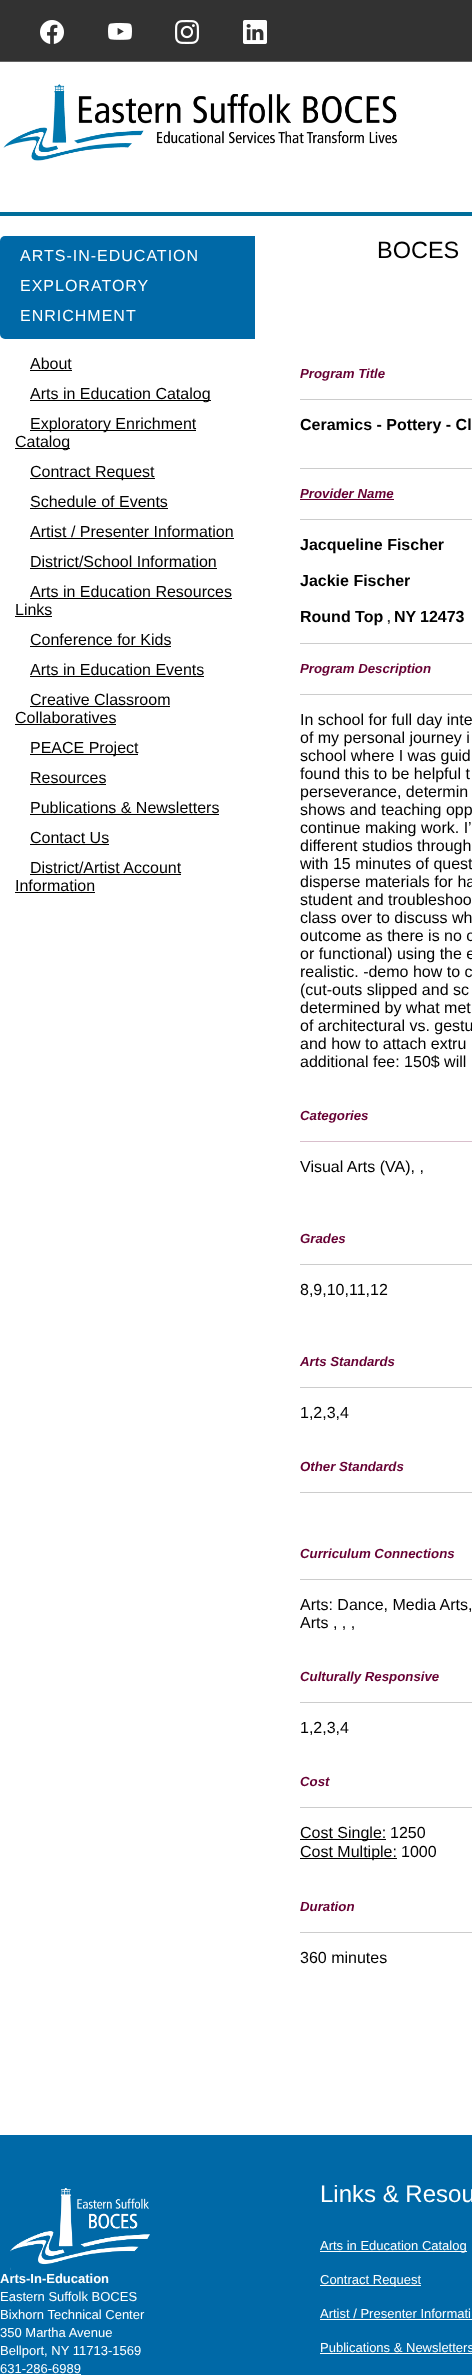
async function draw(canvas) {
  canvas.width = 472
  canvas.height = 2375
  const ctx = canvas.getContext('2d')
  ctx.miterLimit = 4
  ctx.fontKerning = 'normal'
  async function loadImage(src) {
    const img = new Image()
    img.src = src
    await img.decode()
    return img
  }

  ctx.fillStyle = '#fff'
  ctx.fillRect(0, 0, 472, 2375)
  ctx.fillStyle = '#323232'
  ctx.fillRect(0, 0, 472, 61)
  ctx.drawImage(await loadImage('image0.png'), 40, 20, 24, 24)
  ctx.drawImage(await loadImage('image1.png'), 108, 22, 24, 18)
  ctx.drawImage(await loadImage('image2.png'), 175, 20, 24, 24)
  ctx.drawImage(await loadImage('image3.png'), 243, 20, 24, 24)
  ctx.fillStyle = '#636363'
  ctx.fillRect(0, 61, 472, 1)
  ctx.drawImage(await loadImage('image4.png'), 3, 84, 394, 77)
  ctx.fillStyle = '#006e9a'
  ctx.fillRect(0, 212, 472, 4)
  ctx.fillStyle = '#0069a7'
  ctx.beginPath()
  ctx.roundRect(0, 236, 255, 103, [5, 0, 0, 5])
  ctx.fill()
  ctx.letterSpacing = '1px'
  ctx.font = '16px Liberation Sans'
  ctx.fillStyle = '#fff'
  ctx.fillText('ARTS-IN-EDUCATION', 20, 261)
  ctx.fillText('EXPLORATORY', 20, 291)
  ctx.fillText('ENRICHMENT', 20, 321)
  ctx.letterSpacing = '0px'
  ctx.fillStyle = '#000'
  ctx.fillText('About', 30, 369)
  ctx.fillRect(30, 370, 42, 1)
  ctx.fillRect(30, 400, 181, 1)
  ctx.fillText('Arts in Education Catalog', 30, 399)
  ctx.fillRect(30, 430, 166, 1)
  ctx.fillText('Exploratory Enrichment', 30, 429)
  ctx.fillRect(15, 448, 55, 1)
  ctx.fillText('Catalog', 15, 447)
  ctx.fillRect(30, 478, 125, 1)
  ctx.fillText('Contract Request', 30, 477)
  ctx.fillText('Schedule of Events', 30, 507)
  ctx.fillRect(30, 508, 138, 1)
  ctx.fillText('Artist / Presenter Information', 30, 537)
  ctx.fillRect(30, 538, 204, 1)
  ctx.fillText('District/School Information', 30, 567)
  ctx.fillRect(30, 568, 187, 1)
  ctx.fillText('Arts in Education Resources', 30, 597)
  ctx.fillRect(30, 598, 202, 1)
  ctx.fillText('Links', 15, 615)
  ctx.fillRect(15, 616, 37, 1)
  ctx.fillText('Conference for Kids', 30, 645)
  ctx.fillRect(30, 646, 141, 1)
  ctx.fillText('Arts in Education Events', 30, 675)
  ctx.fillRect(30, 676, 174, 1)
  ctx.fillText('Creative Classroom', 30, 705)
  ctx.fillRect(30, 706, 140, 1)
  ctx.fillText('Collaboratives', 15, 723)
  ctx.fillRect(15, 724, 101, 1)
  ctx.fillRect(30, 754, 108, 1)
  ctx.fillText('PEACE Project', 30, 753)
  ctx.fillText('Resources', 30, 783)
  ctx.fillRect(30, 784, 76, 1)
  ctx.fillText('Publications & Newsletters', 30, 813)
  ctx.fillRect(30, 814, 189, 1)
  ctx.fillText('Contact Us', 30, 843)
  ctx.fillRect(30, 844, 79, 1)
  ctx.fillText('District/Artist Account', 30, 873)
  ctx.fillRect(30, 874, 151, 1)
  ctx.fillText('Information', 15, 891)
  ctx.fillRect(15, 892, 80, 1)
  ctx.font = '23.5px Liberation Sans'
  ctx.fillText('BOCES', 377, 258)
  ctx.font = 'italic bold 13.25px Liberation Sans'
  ctx.fillStyle = '#603'
  ctx.fillText('Program Title', 300, 378)
  ctx.fillStyle = '#ccc'
  ctx.fillRect(300, 399, 172, 1)
  ctx.font = 'bold 16px Liberation Sans'
  ctx.fillStyle = '#000'
  ctx.fillText('Ceramics - Pottery - Cl', 300, 430)
  ctx.fillStyle = '#ccc'
  ctx.fillRect(300, 468, 172, 1)
  ctx.font = 'italic bold 13.25px Liberation Sans'
  ctx.fillStyle = '#603'
  ctx.fillText('Provider Name', 300, 498)
  ctx.fillRect(300, 499, 94, 1)
  ctx.fillStyle = '#ccc'
  ctx.fillRect(300, 519, 172, 1)
  ctx.font = 'bold 16px Liberation Sans'
  ctx.fillStyle = '#000'
  ctx.fillText('Jacqueline Fischer', 300, 550)
  ctx.fillText('Jackie Fischer', 300, 586)
  ctx.fillText('Round Top', 300, 622)
  ctx.font = 'bold 13px Liberation Sans'
  ctx.fillStyle = '#333'
  ctx.fillText(',', 387, 622)
  ctx.font = 'bold 16px Liberation Sans'
  ctx.fillStyle = '#000'
  ctx.fillText('NY', 394, 622)
  ctx.fillText('12473', 420, 622)
  ctx.fillStyle = '#ccc'
  ctx.fillRect(300, 643, 172, 1)
  ctx.font = 'italic bold 13.25px Liberation Sans'
  ctx.fillStyle = '#603'
  ctx.fillText('Program Description', 300, 673)
  ctx.fillStyle = '#ccc'
  ctx.fillRect(300, 694, 172, 1)
  ctx.font = '16px Liberation Sans'
  ctx.fillStyle = '#000'
  ctx.fillText('In school for full day inte', 300, 725)
  ctx.fillText('of my personal journey i', 300, 743)
  ctx.fillText('school where I was guid', 300, 761)
  ctx.fillText('found this to be helpful t', 300, 779)
  ctx.fillText('perseverance, determin', 300, 797)
  ctx.fillText('shows and teaching opp', 300, 815)
  ctx.fillText('continue making work. I’', 300, 833)
  ctx.fillText('different studios through', 300, 851)
  ctx.fillText('with 15 minutes of quest', 300, 869)
  ctx.fillText('disperse materials for ha', 300, 887)
  ctx.fillText('student and troubleshoo', 300, 905)
  ctx.fillText('class over to discuss wh', 300, 923)
  ctx.fillText('outcome as there is no o', 300, 941)
  ctx.fillText('or functional) using the e', 300, 959)
  ctx.fillText('realistic. -demo how to c', 300, 977)
  ctx.fillText('(cut-outs slipped and sc', 300, 995)
  ctx.fillText('determined by what met', 300, 1013)
  ctx.fillText('of architectural vs. gestu', 300, 1031)
  ctx.fillText('and how to attach extru', 300, 1049)
  ctx.fillText('additional fee: 150$ will', 300, 1067)
  ctx.font = 'italic bold 13.25px Liberation Sans'
  ctx.fillStyle = '#603'
  ctx.fillText('Categories', 300, 1120)
  ctx.fillStyle = '#d9bfcc'
  ctx.fillRect(300, 1141, 172, 1)
  ctx.font = '16px Liberation Sans'
  ctx.fillStyle = '#000'
  ctx.fillText('Visual Arts (VA), ,', 300, 1172)
  ctx.font = 'italic bold 13.25px Liberation Sans'
  ctx.fillStyle = '#603'
  ctx.fillText('Grades', 300, 1243)
  ctx.fillStyle = '#ccc'
  ctx.fillRect(300, 1264, 172, 1)
  ctx.font = '16px Liberation Sans'
  ctx.fillStyle = '#000'
  ctx.fillText('8,9,10,11,12', 300, 1295)
  ctx.font = 'italic bold 13.25px Liberation Sans'
  ctx.fillStyle = '#603'
  ctx.fillText('Arts Standards', 300, 1366)
  ctx.fillStyle = '#ccc'
  ctx.fillRect(300, 1387, 172, 1)
  ctx.font = '16px Liberation Sans'
  ctx.fillStyle = '#000'
  ctx.fillText('1,2,3,4', 300, 1418)
  ctx.font = 'italic bold 13.25px Liberation Sans'
  ctx.fillStyle = '#603'
  ctx.fillText('Other Standards', 300, 1471)
  ctx.fillStyle = '#ccc'
  ctx.fillRect(300, 1492, 172, 1)
  ctx.fillStyle = '#603'
  ctx.fillText('Curriculum Connections', 300, 1558)
  ctx.fillStyle = '#ccc'
  ctx.fillRect(300, 1579, 172, 1)
  ctx.font = '16px Liberation Sans'
  ctx.fillStyle = '#000'
  ctx.fillText('Arts: Dance, Media Arts,', 300, 1610)
  ctx.fillText('Arts , , ,', 300, 1628)
  ctx.font = 'italic bold 13.25px Liberation Sans'
  ctx.fillStyle = '#603'
  ctx.fillText('Culturally Responsive', 300, 1681)
  ctx.fillStyle = '#ccc'
  ctx.fillRect(300, 1702, 172, 1)
  ctx.font = '16px Liberation Sans'
  ctx.fillStyle = '#000'
  ctx.fillText('1,2,3,4', 300, 1733)
  ctx.font = 'italic bold 13.25px Liberation Sans'
  ctx.fillStyle = '#603'
  ctx.fillText('Cost', 300, 1786)
  ctx.fillStyle = '#ccc'
  ctx.fillRect(300, 1807, 172, 1)
  ctx.fillStyle = '#000'
  ctx.fillRect(300, 1839, 86, 1)
  ctx.font = '16px Liberation Sans'
  ctx.fillText('Cost Single:', 300, 1838)
  ctx.fillText('1250', 390, 1838)
  ctx.fillRect(300, 1858, 97, 1)
  ctx.fillText('Cost Multiple:', 300, 1857)
  ctx.fillText('1000', 401, 1857)
  ctx.font = 'italic bold 13.25px Liberation Sans'
  ctx.fillStyle = '#603'
  ctx.fillText('Duration', 300, 1911)
  ctx.fillStyle = '#ccc'
  ctx.fillRect(300, 1932, 172, 1)
  ctx.font = '16px Liberation Sans'
  ctx.fillStyle = '#000'
  ctx.fillText('360 minutes', 300, 1963)
  ctx.fillStyle = '#0069a7'
  ctx.fillRect(0, 2135, 472, 240)
  ctx.drawImage(await loadImage('image5.png'), 10, 2188, 140, 82)
  ctx.font = 'bold 13px Liberation Sans'
  ctx.fillStyle = '#fff'
  ctx.fillText('Arts-In-Education', 0, 2283)
  ctx.font = '13px Liberation Sans'
  ctx.fillText('Eastern Suffolk BOCES', 0, 2301)
  ctx.fillText('Bixhorn Technical Center', 0, 2319)
  ctx.fillText('350 Martha Avenue', 0, 2337)
  ctx.fillText('Bellport, NY 11713-1569', 0, 2355)
  ctx.fillText('631-286-6989', 0, 2373)
  ctx.fillRect(0, 2374, 81, 1)
  ctx.save()
  ctx.beginPath()
  ctx.rect(308, 2185, 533, 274)
  ctx.clip()
  ctx.font = '24px Liberation Sans'
  ctx.fillText('Links & Resou', 320, 2202)
  ctx.restore()
  ctx.fillRect(320, 2251, 147, 1)
  ctx.fillText('Arts in Education Catalog', 320, 2250)
  ctx.fillRect(320, 2285, 101, 1)
  ctx.fillText('Contract Request', 320, 2284)
  ctx.fillText('Artist / Presenter Informati', 320, 2318)
  ctx.fillRect(320, 2319, 152, 1)
  ctx.fillText('Publications & Newsletters', 320, 2352)
  ctx.fillRect(320, 2353, 152, 1)
}

draw(document.querySelector('canvas'))
